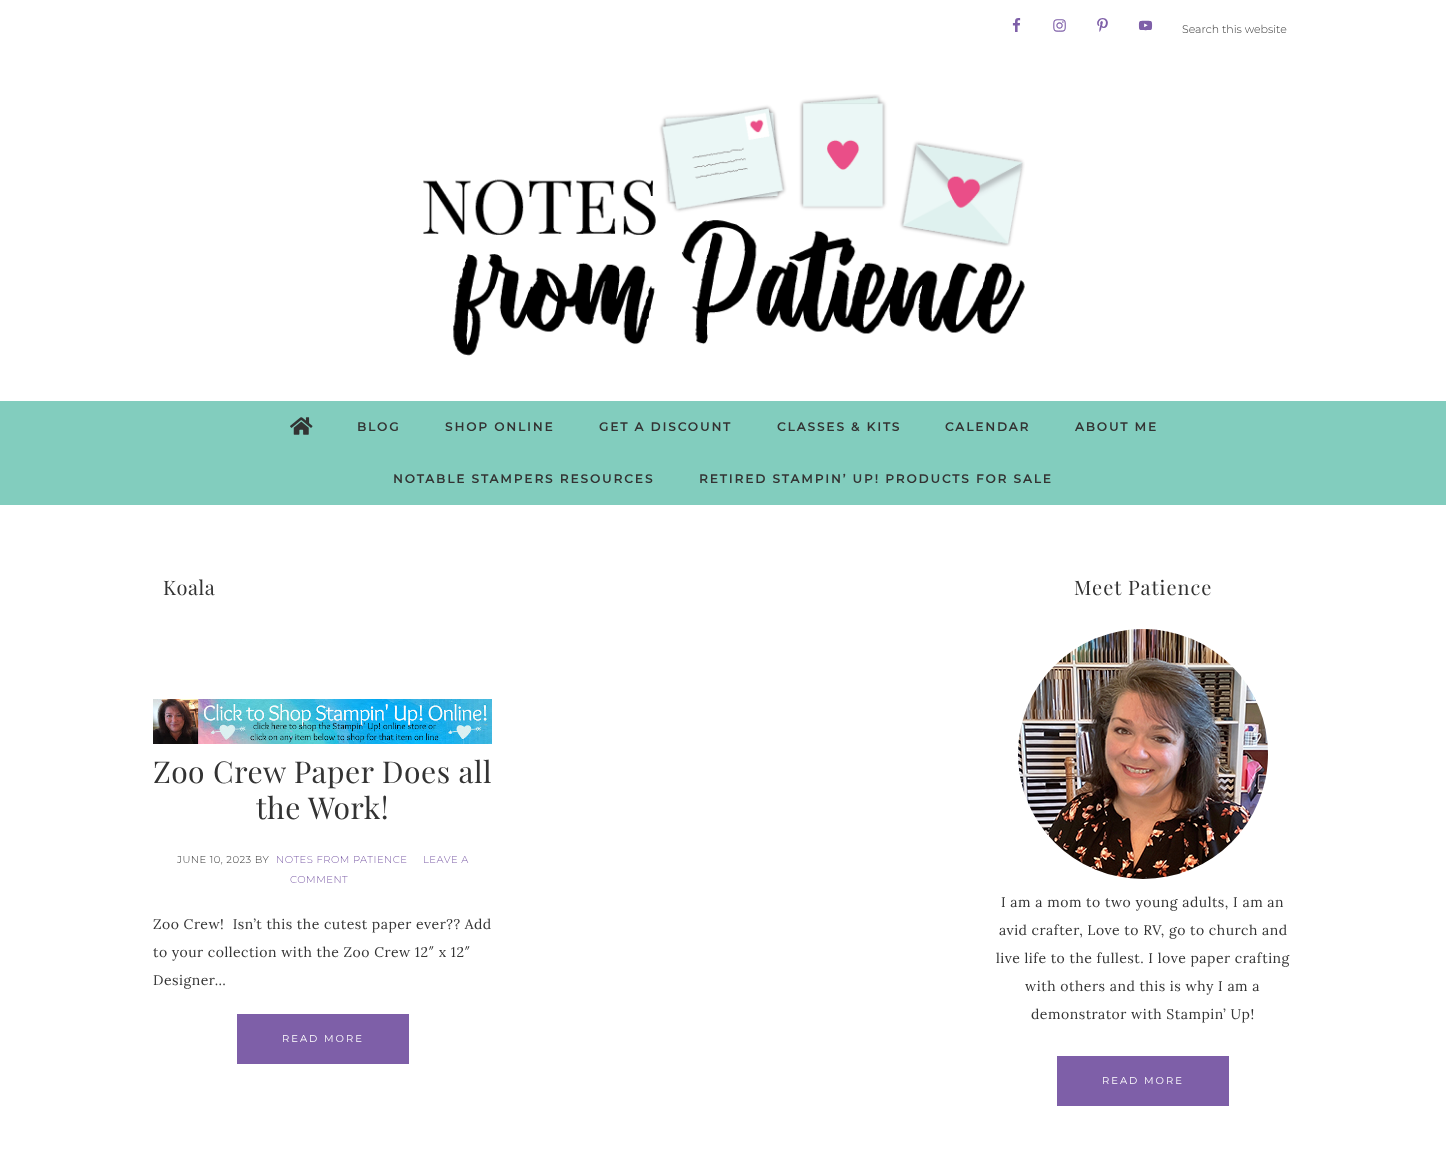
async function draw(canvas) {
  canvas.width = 1446
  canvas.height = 1162
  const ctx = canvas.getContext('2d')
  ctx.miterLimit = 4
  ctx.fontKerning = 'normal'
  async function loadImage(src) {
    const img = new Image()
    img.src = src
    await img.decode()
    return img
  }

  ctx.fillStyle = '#fff'
  ctx.fillRect(0, 0, 1446, 1162)
  ctx.drawImage(await loadImage('image0.png'), 1012, 18, 9, 14)
  ctx.drawImage(await loadImage('image1.png'), 1053, 19, 13, 13)
  ctx.drawImage(await loadImage('image2.png'), 1097, 18, 11, 14)
  ctx.drawImage(await loadImage('image3.png'), 1138, 20, 15, 11)
  ctx.font = '300 11px Montserrat'
  ctx.fillStyle = '#333'
  ctx.fillText('Search this website', 1182, 33)
  ctx.drawImage(await loadImage('image4.png'), 423, 94, 602, 262)
  ctx.fillStyle = '#82cdbe'
  ctx.fillRect(0, 401, 1446, 104)
  ctx.drawImage(await loadImage('image5.png'), 290, 417, 23, 18)
  ctx.letterSpacing = '2px'
  ctx.font = 'bold 12px Montserrat'
  ctx.fillStyle = '#333'
  ctx.fillText('BLOG', 357, 431)
  ctx.fillText('SHOP ONLINE', 445, 431)
  ctx.fillText('GET A DISCOUNT', 599, 431)
  ctx.fillText('CLASSES & KITS', 777, 431)
  ctx.fillText('CALENDAR', 945, 431)
  ctx.fillText('ABOUT ME', 1075, 431)
  ctx.fillText('NOTABLE STAMPERS RESOURCES', 393, 483)
  ctx.fillText('RETIRED STAMPIN’ UP! PRODUCTS FOR SALE', 699, 483)
  ctx.letterSpacing = '0.5px'
  ctx.font = '20px Playfair Display'
  ctx.fillText('Koala', 163, 595)
  ctx.drawImage(await loadImage('image6.png'), 153, 699, 339, 45)
  ctx.font = '30px Playfair Display'
  ctx.fillText('Zoo Crew Paper Does all', 153, 783)
  ctx.fillText('the Work!', 256, 819)
  ctx.font = '300 10px Montserrat'
  ctx.fillText('JUNE 10, 2023 BY', 177, 863)
  ctx.fillStyle = '#7e5fa8'
  ctx.fillText('NOTES FROM PATIENCE', 276, 863)
  ctx.fillText('LEAVE A', 423, 863)
  ctx.fillText('COMMENT', 290, 883)
  ctx.font = '14px Lora'
  ctx.fillStyle = '#333'
  ctx.fillText('Zoo Crew!  Isn’t this the cutest paper ever?? Add', 153, 929)
  ctx.fillText('to your collection with the Zoo Crew 12″ x 12″', 153, 957)
  ctx.fillText('Designer…', 153, 985)
  ctx.fillStyle = '#7e5fa8'
  ctx.fillRect(237, 1014, 172, 50)
  ctx.letterSpacing = '2px'
  ctx.font = '10px Montserrat'
  ctx.fillStyle = '#fff'
  ctx.fillText('READ MORE', 282, 1042)
  ctx.letterSpacing = '1px'
  ctx.font = '20px Playfair Display'
  ctx.fillStyle = '#333'
  ctx.fillText('Meet Patience', 1074, 595)
  ctx.drawImage(await loadImage('image7.png'), 1018, 629, 250, 250)
  ctx.letterSpacing = '0.5px'
  ctx.font = '14px Lora'
  ctx.fillText('I am a mom to two young adults, I am an', 1001, 907)
  ctx.fillText('avid crafter, Love to RV, go to church and', 999, 935)
  ctx.fillText('live life to the fullest. I love paper crafting', 996, 963)
  ctx.fillText('with others and this is why I am a', 1025, 991)
  ctx.fillText('demonstrator with Stampin’ Up!', 1031, 1019)
  ctx.fillStyle = '#7e5fa8'
  ctx.fillRect(1057, 1056, 172, 50)
  ctx.letterSpacing = '2px'
  ctx.font = '10px Montserrat'
  ctx.fillStyle = '#fff'
  ctx.fillText('READ MORE', 1102, 1084)
}

draw(document.querySelector('canvas'))
